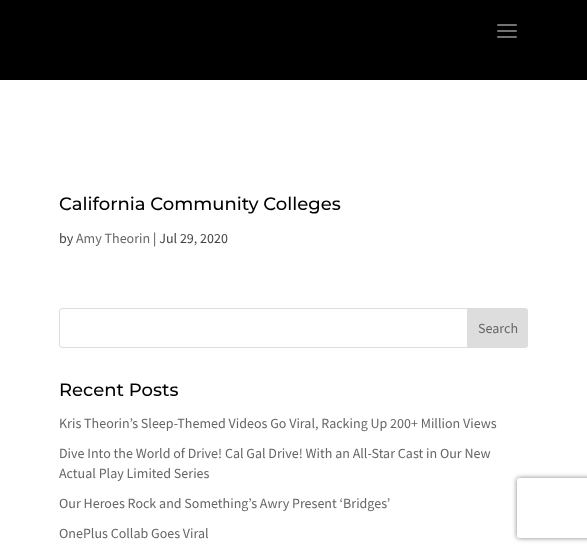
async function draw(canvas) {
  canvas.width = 587
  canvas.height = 552
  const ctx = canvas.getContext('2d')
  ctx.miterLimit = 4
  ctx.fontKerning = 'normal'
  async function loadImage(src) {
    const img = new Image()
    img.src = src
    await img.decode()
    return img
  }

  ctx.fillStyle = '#000'
  ctx.fillRect(0, 0, 587, 552)
  ctx.drawImage(await loadImage('image0.png'), 497, 24, 20, 14)
  ctx.fillStyle = '#fff'
  ctx.fillRect(0, 80, 587, 472)
  ctx.font = '500 18px Montserrat'
  ctx.fillStyle = '#000'
  ctx.fillText('California Community Colleges', 59, 210)
  ctx.font = '14px Source Sans Pro'
  ctx.fillStyle = '#444'
  ctx.fillText('by', 59, 243)
  ctx.fillStyle = '#666'
  ctx.fillText('Amy Theorin', 76, 243)
  ctx.fillStyle = '#444'
  ctx.fillText('| Jul 29, 2020', 153, 243)
  ctx.beginPath()
  ctx.roundRect(59.5, 308.5, 468, 39, 2.5)
  ctx.strokeStyle = '#ddd'
  ctx.stroke()
  ctx.fillStyle = '#ddd'
  ctx.beginPath()
  ctx.roundRect(467.5, 308.5, 60, 39, [0, 2.5, 2.5, 0])
  ctx.fill()
  ctx.stroke()
  ctx.fillStyle = '#666'
  ctx.fillText('Search', 478, 333)
  ctx.font = '500 18px Montserrat'
  ctx.fillStyle = '#000'
  ctx.fillText('Recent Posts', 59, 396)
  ctx.font = '14px Source Sans Pro'
  ctx.fillStyle = '#666'
  ctx.fillText('Kris Theorin’s Sleep-Themed Videos Go Viral, Racking Up 200+ Million Views', 59, 428)
  ctx.fillText('Dive Into the World of Drive! Cal Gal Drive! With an All-Star Cast in Our New', 59, 458)
  ctx.fillText('Actual Play Limited Series', 59, 478)
  ctx.fillText('Our Heroes Rock and Something’s Awry Present ‘Bridges’', 59, 508)
  ctx.fillText('OnePlus Collab Goes Viral', 59, 538)
  ctx.save()
  ctx.beginPath()
  ctx.moveTo(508, 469)
  ctx.lineTo(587, 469)
  ctx.lineTo(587, 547)
  ctx.lineTo(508, 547)
  ctx.closePath()
  ctx.moveTo(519, 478)
  ctx.lineTo(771, 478)
  ctx.bezierCurveTo(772, 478, 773, 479, 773, 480)
  ctx.lineTo(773, 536)
  ctx.bezierCurveTo(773, 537, 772, 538, 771, 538)
  ctx.lineTo(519, 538)
  ctx.bezierCurveTo(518, 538, 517, 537, 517, 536)
  ctx.lineTo(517, 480)
  ctx.bezierCurveTo(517, 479, 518, 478, 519, 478)
  ctx.closePath()
  ctx.clip('evenodd')
  ctx.fillStyle = '#808080'
  ctx.filter = 'blur(2.5px)'
  ctx.beginPath()
  ctx.roundRect(517, 478, 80, 60, 2)
  ctx.fill()
  ctx.filter = 'none'
  ctx.restore()
}

draw(document.querySelector('canvas'))
